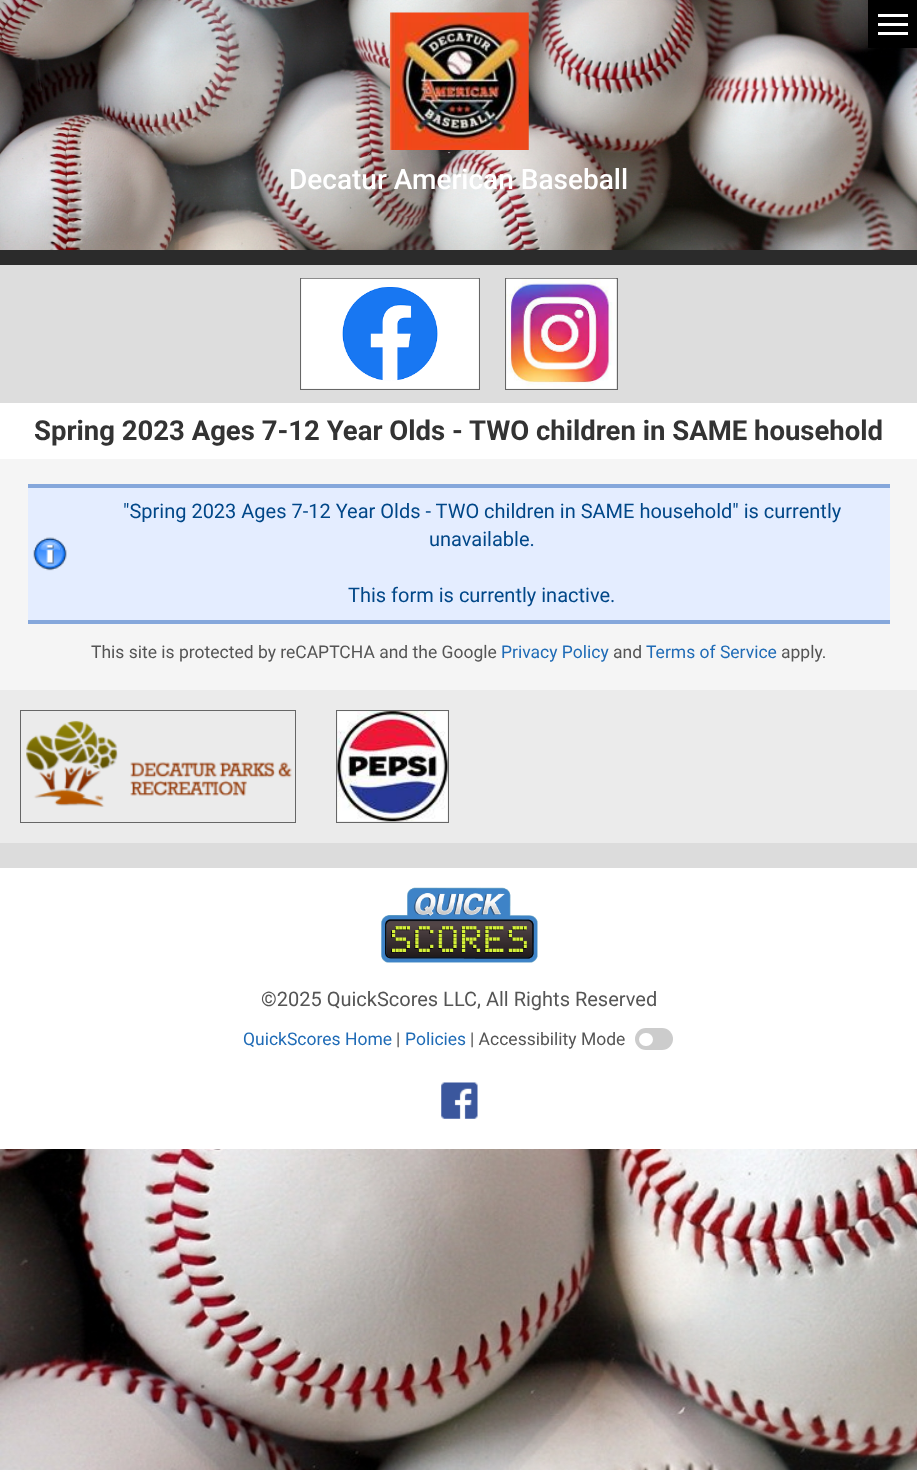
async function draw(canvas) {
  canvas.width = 917
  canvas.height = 1470
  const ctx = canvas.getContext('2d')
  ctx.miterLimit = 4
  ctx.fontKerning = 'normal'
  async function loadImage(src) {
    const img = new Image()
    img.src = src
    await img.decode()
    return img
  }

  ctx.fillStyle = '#fff'
  ctx.fillRect(0, 0, 917, 1470)
  ctx.drawImage(await loadImage('image0.png'), 0, 1149, 917, 321)
  ctx.drawImage(await loadImage('image2.png'), 0, 0, 917, 250)
  ctx.fillStyle = '#000'
  ctx.fillRect(868, 0, 49, 48)
  ctx.drawImage(await loadImage('image1.png'), 878, 14, 30, 21)
  ctx.fillStyle = '#2b2b2b'
  ctx.fillRect(0, 250, 917, 15)
  ctx.drawImage(await loadImage('image3.png'), 390, 12, 139, 138)
  ctx.font = '500 28px Roboto'
  ctx.fillStyle = '#fff'
  ctx.fillText('Decatur American Baseball', 289, 189)
  ctx.fillStyle = '#ddd'
  ctx.fillRect(0, 265, 917, 138)
  ctx.strokeStyle = '#666'
  ctx.strokeRect(300.5, 278.5, 179, 111)
  ctx.drawImage(await loadImage('image4.png'), 301, 278, 178, 111)
  ctx.strokeRect(505.5, 278.5, 112, 111)
  ctx.drawImage(await loadImage('image5.png'), 506, 278, 111, 111)
  ctx.font = 'bold 27.5px Roboto'
  ctx.fillStyle = '#333'
  ctx.fillText('Spring 2023 Ages 7-12 Year Olds - TWO children in SAME household', 34, 440)
  ctx.fillStyle = '#f5f5f5'
  ctx.fillRect(0, 459, 917, 231)
  ctx.fillStyle = '#e4edff'
  ctx.fillRect(28, 488, 862, 132)
  ctx.drawImage(await loadImage('image6.png'), 33, 537, 34, 34)
  ctx.fillStyle = '#85a7db'
  ctx.fillRect(28, 484, 862, 4)
  ctx.fillRect(28, 620, 862, 4)
  ctx.font = '20px Roboto'
  ctx.fillStyle = '#004788'
  ctx.fillText('"Spring 2023 Ages 7-12 Year Olds - TWO children in SAME household" is currently', 123, 518)
  ctx.fillText('unavailable.', 429, 546)
  ctx.fillText('This form is currently inactive.', 348, 602)
  ctx.font = '17.5px Roboto'
  ctx.fillStyle = '#555'
  ctx.fillText('This site is protected by reCAPTCHA and the Google', 91, 658)
  ctx.fillStyle = '#1f6bb6'
  ctx.fillText('Privacy Policy', 501, 658)
  ctx.fillStyle = '#555'
  ctx.fillText('and', 613, 658)
  ctx.fillStyle = '#1f6bb6'
  ctx.fillText('Terms of Service', 646, 658)
  ctx.fillStyle = '#555'
  ctx.fillText('apply.', 781, 658)
  ctx.fillStyle = '#ebebeb'
  ctx.fillRect(0, 690, 917, 153)
  ctx.strokeRect(20.5, 710.5, 275, 112)
  ctx.drawImage(await loadImage('image7.png'), 26, 720, 266, 87)
  ctx.strokeRect(336.5, 710.5, 112, 112)
  ctx.drawImage(await loadImage('image8.png'), 337, 711, 111, 111)
  ctx.fillStyle = '#dcdcdc'
  ctx.fillRect(0, 843, 917, 25)
  ctx.drawImage(await loadImage('image9.png'), 381, 887, 157, 76)
  ctx.font = '20px Roboto'
  ctx.fillStyle = '#555'
  ctx.fillText('©2025 QuickScores LLC, All Rights Reserved', 261, 1006)
  ctx.font = '17.5px Roboto'
  ctx.fillStyle = '#1f6bb6'
  ctx.fillText('QuickScores Home', 243, 1045)
  ctx.fillStyle = '#555'
  ctx.fillText('|', 396, 1045)
  ctx.fillStyle = '#1f6bb6'
  ctx.fillText('Policies', 405, 1045)
  ctx.fillStyle = '#555'
  ctx.fillText('| Accessibility Mode', 470, 1045)
  ctx.fillStyle = '#ccc'
  ctx.beginPath()
  ctx.roundRect(635, 1028, 38, 22, 11)
  ctx.fill()
  ctx.fillStyle = '#fff'
  ctx.beginPath()
  ctx.roundRect(639, 1033, 14, 13, 6.5)
  ctx.fill()
  ctx.drawImage(await loadImage('image10.png'), 441, 1082, 37, 37)
}

draw(document.querySelector('canvas'))
